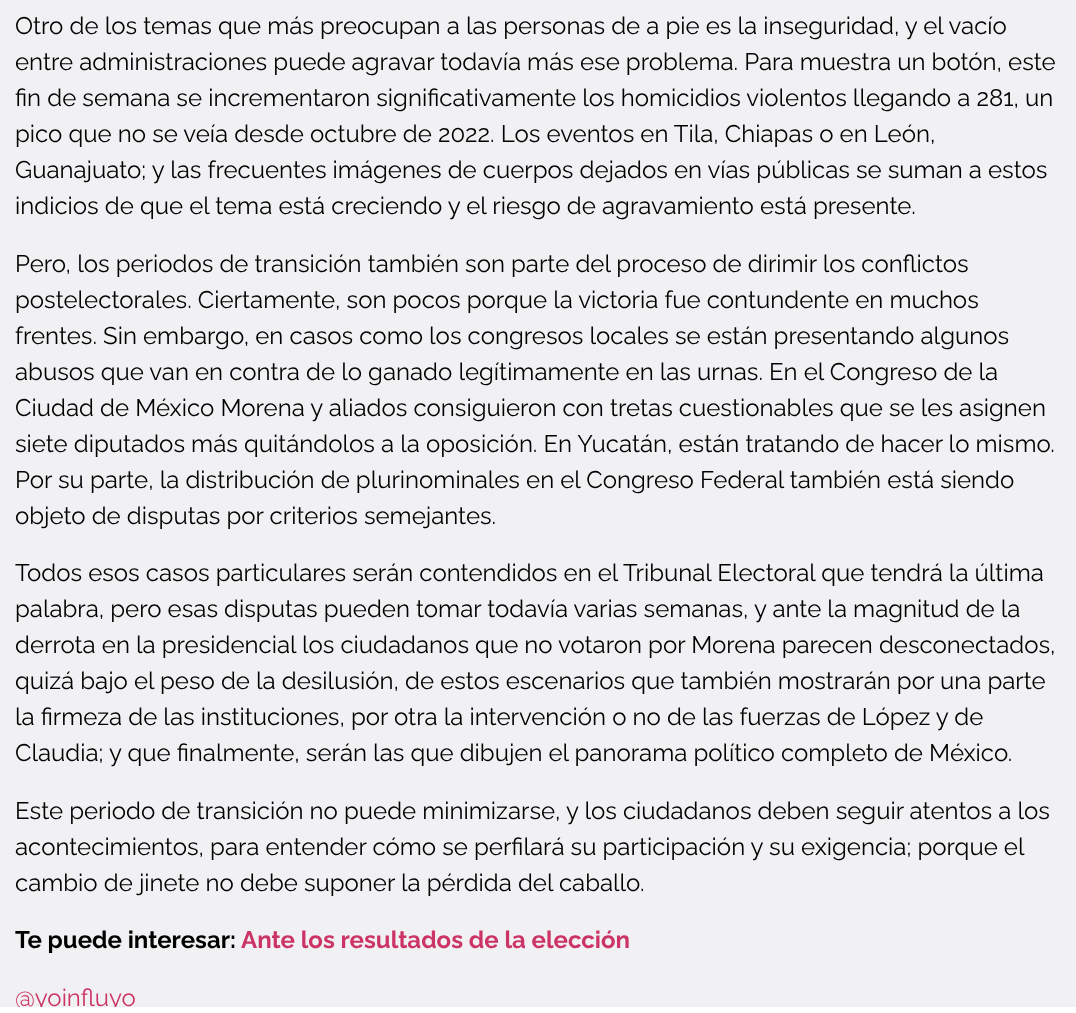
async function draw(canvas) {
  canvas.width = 1076
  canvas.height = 1013
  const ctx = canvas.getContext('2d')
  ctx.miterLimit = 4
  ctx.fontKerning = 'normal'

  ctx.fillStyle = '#f1f1f3'
  ctx.fillRect(0, 0, 1076, 1013)
  ctx.font = '24px Raleway'
  ctx.fillStyle = '#000'
  ctx.fillText('Otro de los temas que más preocupan a las personas de a pie es la inseguridad, y el vacío', 15, 34)
  ctx.fillText('entre administraciones puede agravar todavía más ese problema. Para muestra un botón, este', 15, 70)
  ctx.fillText('fin de semana se incrementaron significativamente los homicidios violentos llegando a 281, un', 15, 106)
  ctx.fillText('pico que no se veía desde octubre de 2022. Los eventos en Tila, Chiapas o en León,', 15, 142)
  ctx.fillText('Guanajuato; y las frecuentes imágenes de cuerpos dejados en vías públicas se suman a estos', 15, 178)
  ctx.fillText('indicios de que el tema está creciendo y el riesgo de agravamiento está presente.', 15, 214)
  ctx.fillText('Pero, los periodos de transición también son parte del proceso de dirimir los conflictos', 15, 272)
  ctx.fillText('postelectorales. Ciertamente, son pocos porque la victoria fue contundente en muchos', 15, 308)
  ctx.fillText('frentes. Sin embargo, en casos como los congresos locales se están presentando algunos', 15, 344)
  ctx.fillText('abusos que van en contra de lo ganado legítimamente en las urnas. En el Congreso de la', 15, 380)
  ctx.fillText('Ciudad de México Morena y aliados consiguieron con tretas cuestionables que se les asignen', 15, 416)
  ctx.fillText('siete diputados más quitándolos a la oposición. En Yucatán, están tratando de hacer lo mismo.', 15, 452)
  ctx.fillText('Por su parte, la distribución de plurinominales en el Congreso Federal también está siendo', 15, 488)
  ctx.fillText('objeto de disputas por criterios semejantes.', 15, 524)
  ctx.fillText('Todos esos casos particulares serán contendidos en el Tribunal Electoral que tendrá la última', 15, 581)
  ctx.fillText('palabra, pero esas disputas pueden tomar todavía varias semanas, y ante la magnitud de la', 15, 617)
  ctx.fillText('derrota en la presidencial los ciudadanos que no votaron por Morena parecen desconectados,', 15, 653)
  ctx.fillText('quizá bajo el peso de la desilusión, de estos escenarios que también mostrarán por una parte', 15, 689)
  ctx.fillText('la firmeza de las instituciones, por otra la intervención o no de las fuerzas de López y de', 15, 725)
  ctx.fillText('Claudia; y que finalmente, serán las que dibujen el panorama político completo de México.', 15, 761)
  ctx.fillText('Este periodo de transición no puede minimizarse, y los ciudadanos deben seguir atentos a los', 15, 819)
  ctx.fillText('acontecimientos, para entender cómo se perfilará su participación y su exigencia; porque el', 15, 855)
  ctx.fillText('cambio de jinete no debe suponer la pérdida del caballo.', 15, 891)
  ctx.font = 'bold 24px Raleway'
  ctx.fillText('Te puede interesar:', 15, 948)
  ctx.fillStyle = '#c36'
  ctx.fillText('Ante los resultados de la elección', 241, 948)
  ctx.font = '24px Raleway'
  ctx.fillText('@yoinfluyo', 15, 1006)
  ctx.fillStyle = '#fff'
  ctx.fillRect(0, 1007, 1076, 6)
}

draw(document.querySelector('canvas'))
